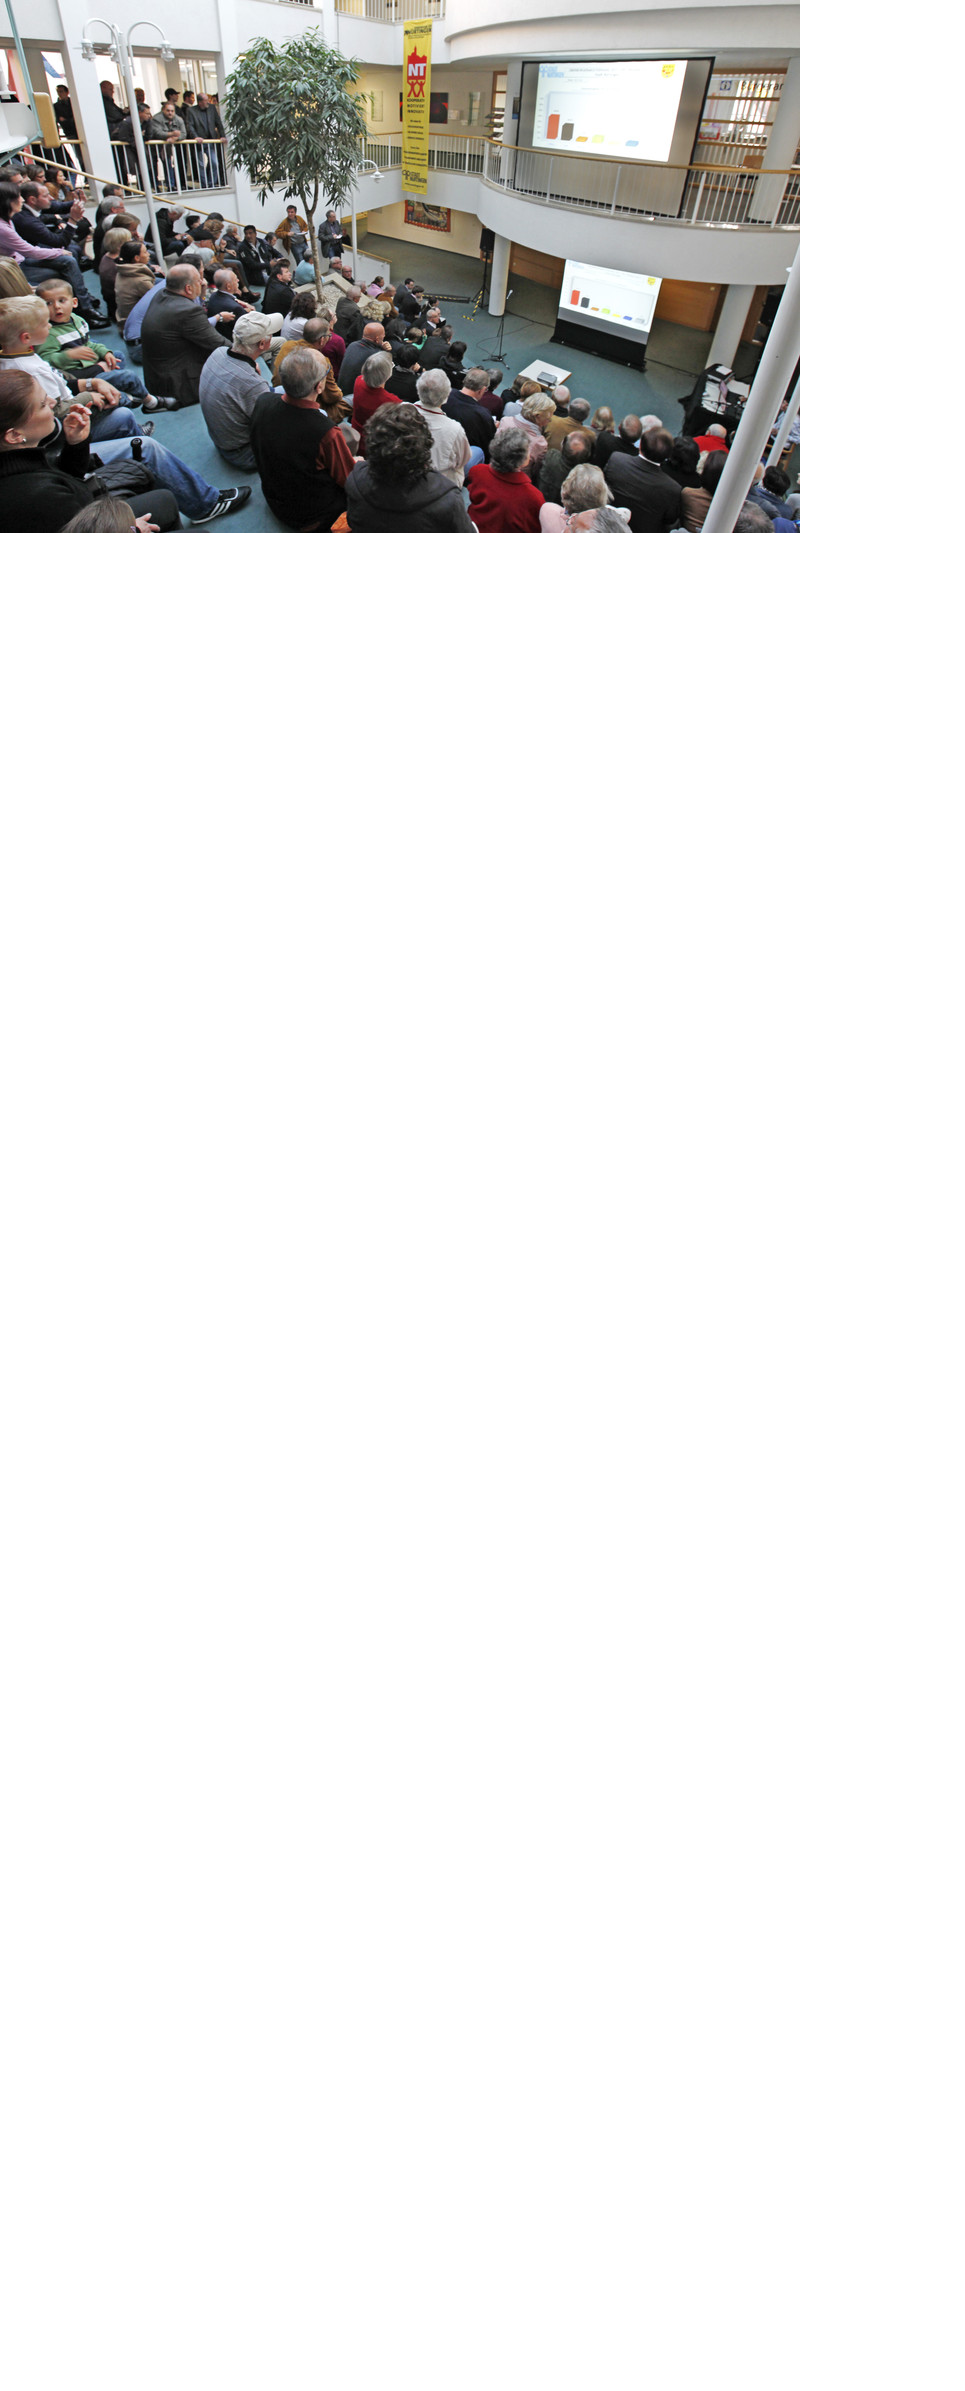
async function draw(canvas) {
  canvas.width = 965
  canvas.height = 2391
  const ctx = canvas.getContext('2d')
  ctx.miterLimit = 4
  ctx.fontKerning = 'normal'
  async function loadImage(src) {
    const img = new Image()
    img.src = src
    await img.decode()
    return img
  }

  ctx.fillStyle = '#fff'
  ctx.fillRect(0, 0, 965, 2391)
  ctx.drawImage(await loadImage('image0.png'), 0, 0, 800, 533)
}

draw(document.querySelector('canvas'))
